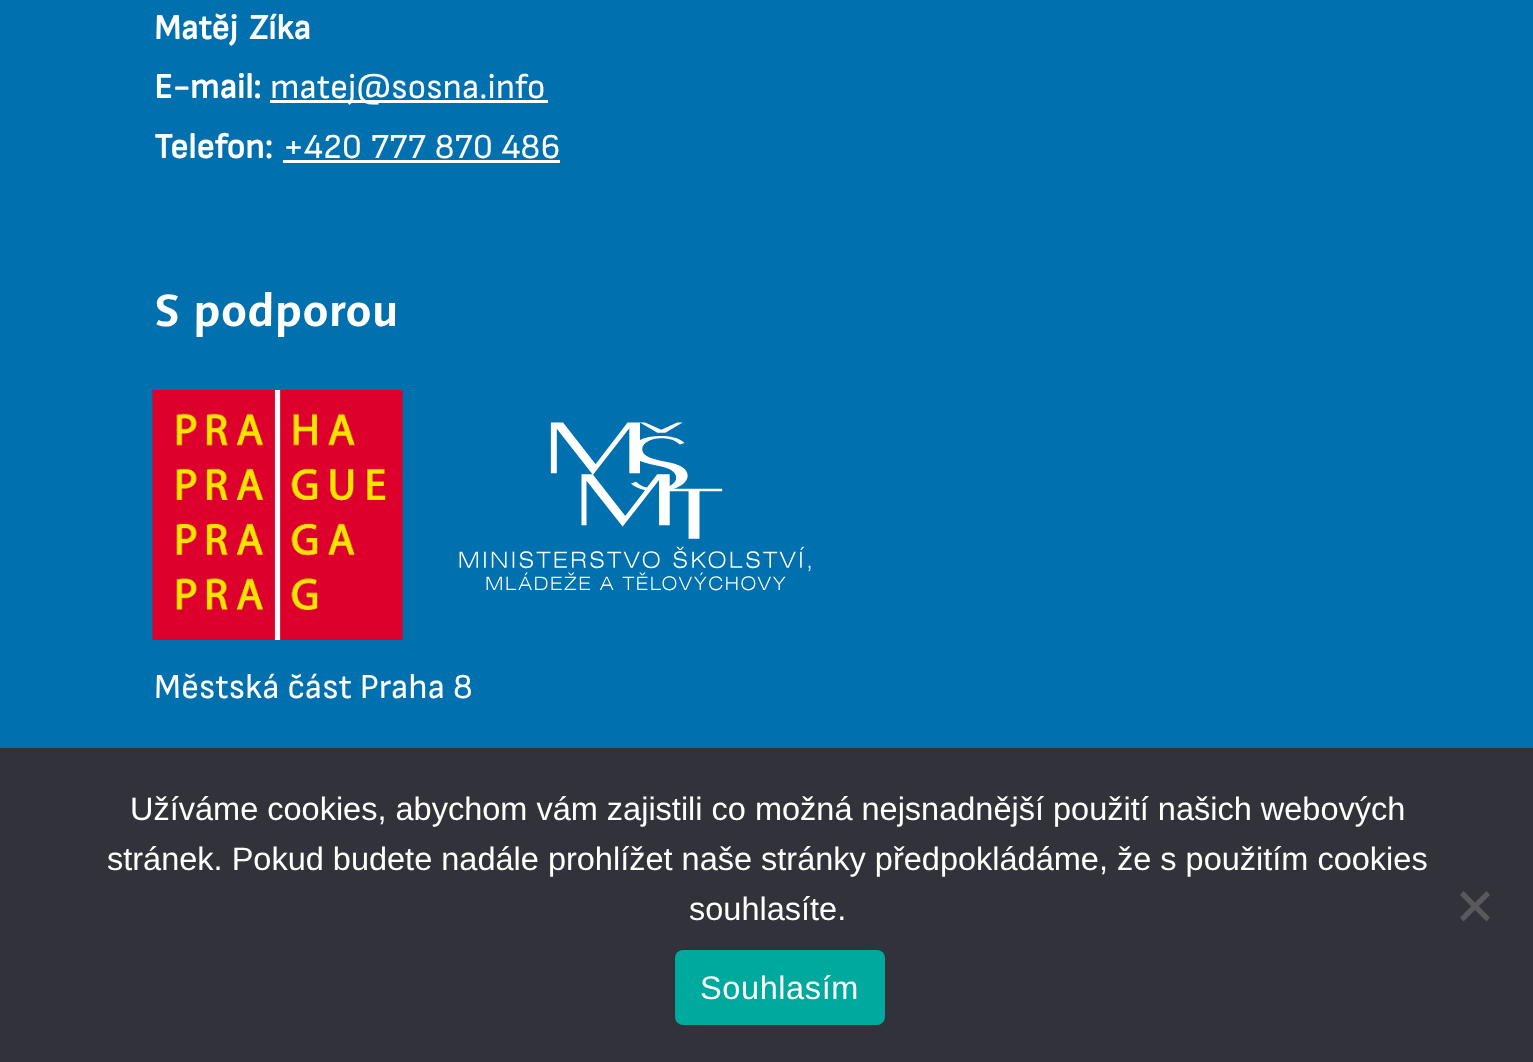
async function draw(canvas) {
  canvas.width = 1533
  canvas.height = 1062
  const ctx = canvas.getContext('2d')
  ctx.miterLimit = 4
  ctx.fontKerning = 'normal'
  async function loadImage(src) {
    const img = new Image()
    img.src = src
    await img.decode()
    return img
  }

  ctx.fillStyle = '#0070af'
  ctx.fillRect(0, 0, 1533, 1062)
  ctx.wordSpacing = '4px'
  ctx.font = 'bold 35px Sofia Sans'
  ctx.fillStyle = '#fff'
  ctx.fillText('Matěj Zíka', 154, 39)
  ctx.wordSpacing = '0px'
  ctx.fillText('E-mail:', 154, 98)
  ctx.fillRect(270, 100, 278, 3)
  ctx.font = '35px Sofia Sans'
  ctx.fillText('matej@sosna.info', 270, 98)
  ctx.font = 'bold 35px Sofia Sans'
  ctx.fillText('Telefon:', 154, 158)
  ctx.wordSpacing = '1px'
  ctx.font = '35px Sofia Sans'
  ctx.fillText('+420 777 870 486', 283, 158)
  ctx.fillRect(283, 160, 277, 3)
  ctx.wordSpacing = '0px'
  ctx.font = 'bold 45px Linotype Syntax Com'
  ctx.fillText('S podporou', 154, 326)
  ctx.drawImage(await loadImage('image0.png'), 152, 390, 251, 250)
  ctx.drawImage(await loadImage('image1.png'), 459, 422, 352, 169)
  ctx.wordSpacing = '0.5px'
  ctx.font = '35px Sofia Sans'
  ctx.fillText('Městská část Praha 8', 154, 698)
  ctx.fillStyle = '#32323a'
  ctx.fillRect(0, 748, 1533, 314)
  ctx.wordSpacing = '0px'
  ctx.font = '32.5px Liberation Sans'
  ctx.fillStyle = '#fff'
  ctx.fillText('Užíváme cookies, abychom vám zajistili co možná nejsnadnější použití našich webových', 130, 820)
  ctx.fillText('stránek. Pokud budete nadále prohlížet naše stránky předpokládáme, že s použitím cookies', 107, 870)
  ctx.fillText('souhlasíte.', 689, 920)
  ctx.fillStyle = '#59595d'
  ctx.beginPath()
  ctx.moveTo(1486.5, 891)
  ctx.lineTo(1490, 895)
  ctx.lineTo(1463.5, 921.5)
  ctx.lineTo(1460, 917.5)
  ctx.closePath()
  ctx.fill()
  ctx.beginPath()
  ctx.moveTo(1460, 895)
  ctx.lineTo(1463.5, 891)
  ctx.lineTo(1490, 917.5)
  ctx.lineTo(1486.5, 921.5)
  ctx.closePath()
  ctx.fill()
  ctx.fillStyle = '#00a99d'
  ctx.beginPath()
  ctx.roundRect(675, 950, 210, 75, 8)
  ctx.fill()
  ctx.letterSpacing = '0.6px'
  ctx.fillStyle = '#fff'
  ctx.fillText('Souhlasím', 700, 999)
}

draw(document.querySelector('canvas'))
